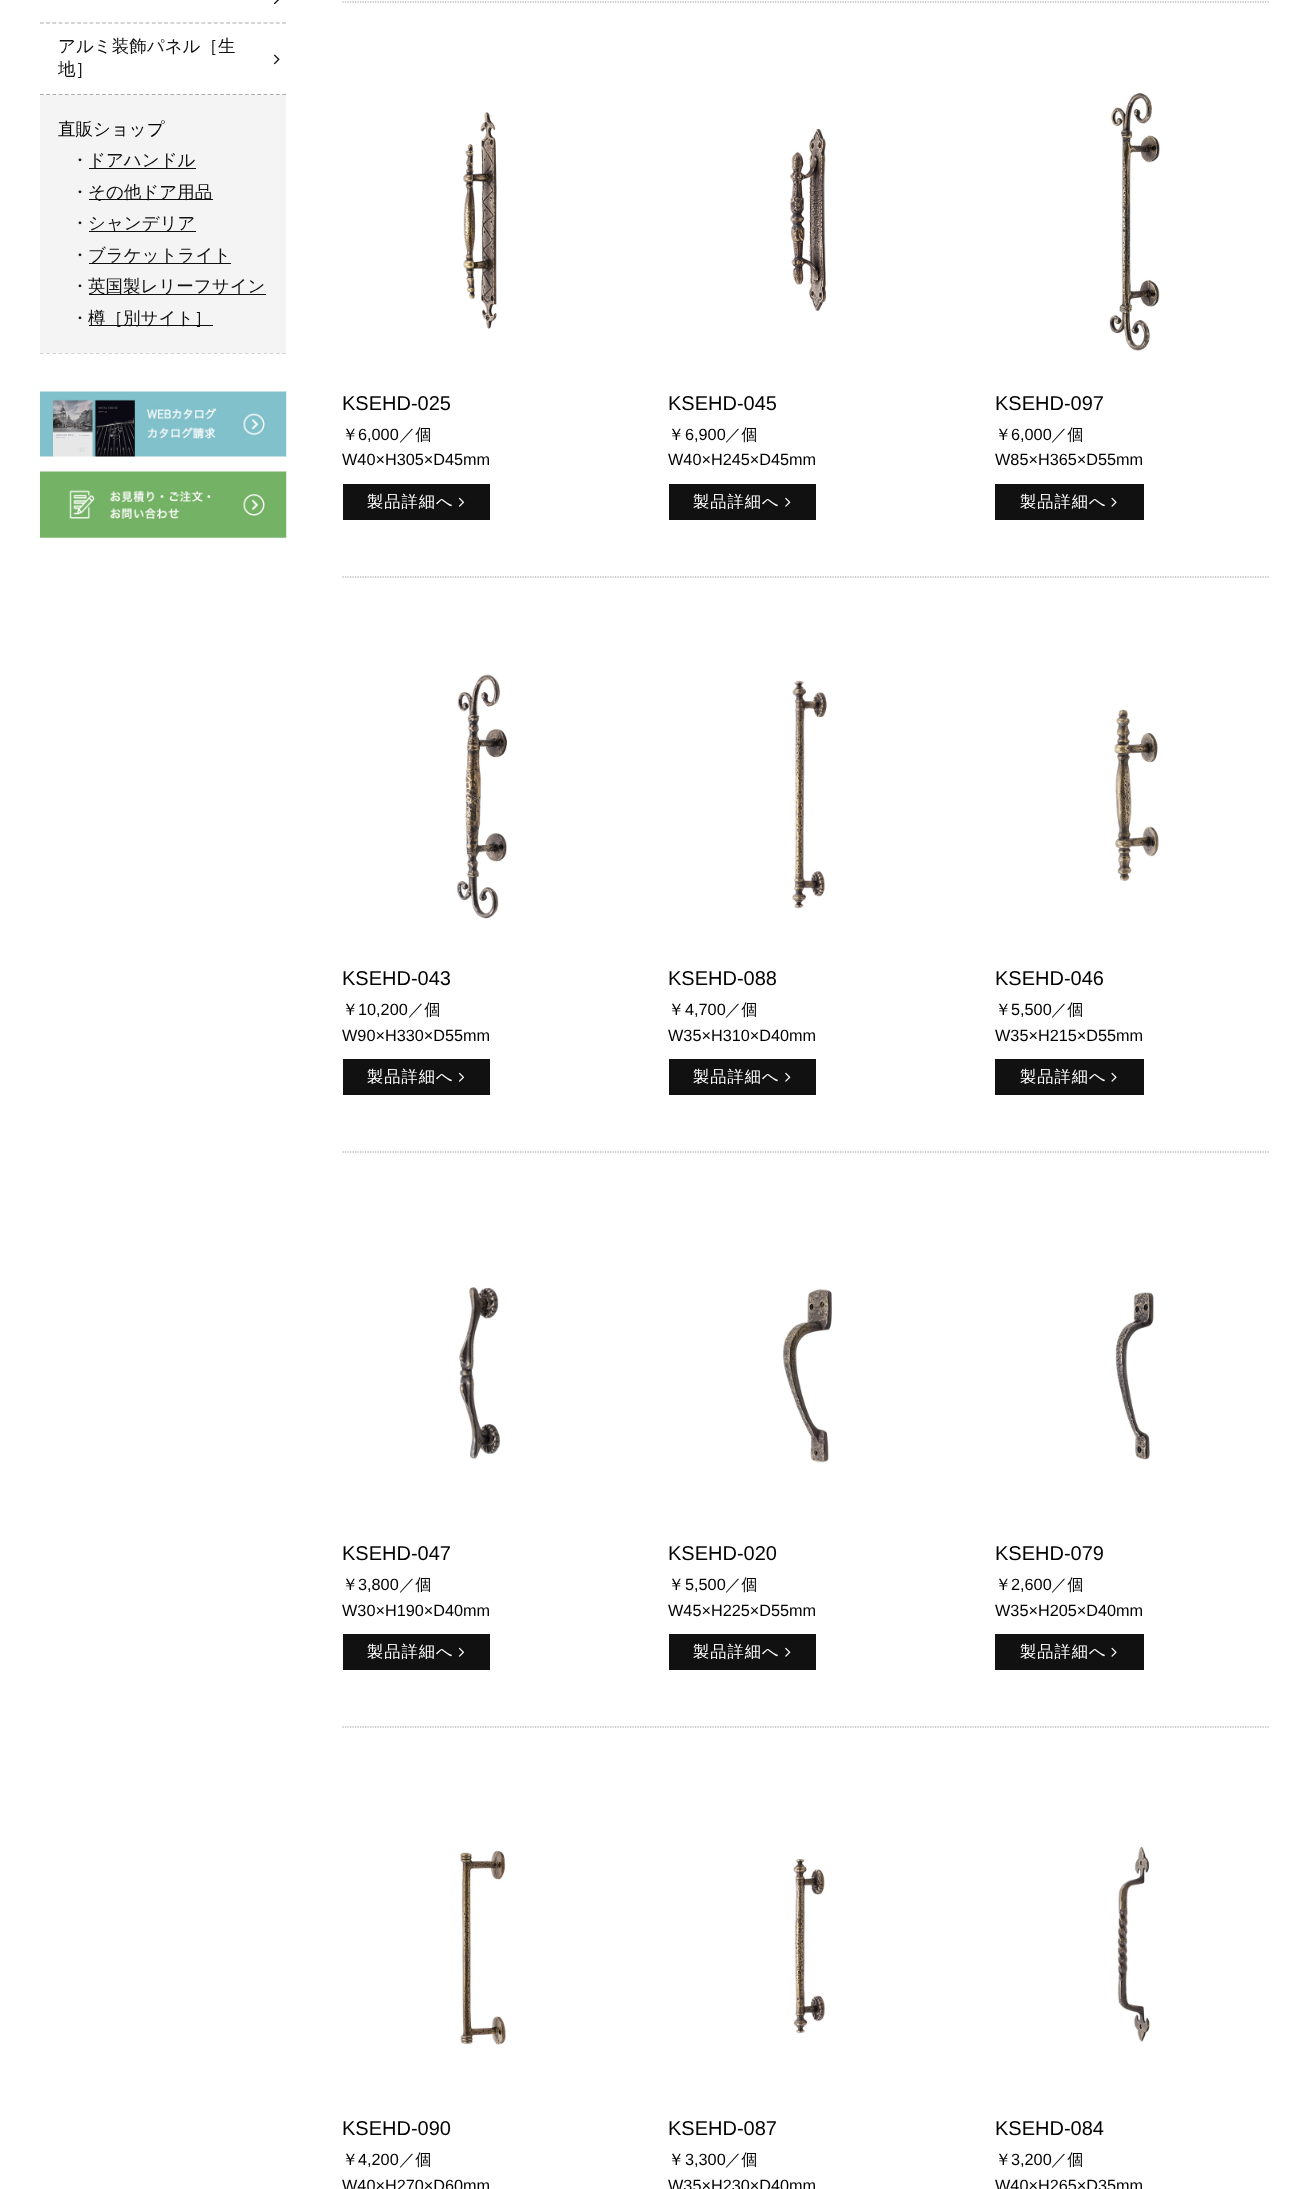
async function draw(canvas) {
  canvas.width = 1313
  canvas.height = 2189
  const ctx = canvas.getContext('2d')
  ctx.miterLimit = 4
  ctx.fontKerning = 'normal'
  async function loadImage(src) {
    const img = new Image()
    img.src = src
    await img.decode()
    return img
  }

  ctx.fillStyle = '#fff'
  ctx.fillRect(0, 0, 1313, 2189)
  ctx.beginPath()
  ctx.moveTo(40, 23)
  ctx.lineTo(286, 23)
  ctx.strokeStyle = '#aaa'
  ctx.lineWidth = 1.2
  ctx.setLineDash([3.75, 2.46])
  ctx.stroke()
  ctx.drawImage(await loadImage('image0.png'), 273, 0, 6, 5)
  ctx.beginPath()
  ctx.moveTo(40, 94.5)
  ctx.lineTo(286, 94.5)
  ctx.stroke()
  ctx.font = '500 17.5px WenQuanYi Zen Hei'
  ctx.fillStyle = '#111'
  ctx.fillText('アルミ装飾パネル［生', 58, 52)
  ctx.fillText('地］', 58, 75)
  ctx.drawImage(await loadImage('image1.png'), 273, 54, 7, 11)
  ctx.beginPath()
  ctx.moveTo(40, 353)
  ctx.lineTo(286, 353)
  ctx.stroke()
  ctx.fillStyle = '#f4f4f4'
  ctx.fillRect(40, 95, 246, 258)
  ctx.fillStyle = '#000'
  ctx.fillText('直販ショップ', 58, 135)
  ctx.fillStyle = '#111'
  ctx.fillText('・', 71, 166)
  ctx.fillRect(89, 168, 107, 1)
  ctx.fillText('ドアハンドル', 88, 166)
  ctx.fillText('・', 71, 198)
  ctx.fillRect(89, 199, 124, 1)
  ctx.fillText('その他ドア用品', 88, 198)
  ctx.fillText('・', 71, 229)
  ctx.fillRect(89, 231, 107, 1)
  ctx.fillText('シャンデリア', 88, 229)
  ctx.fillText('・', 71, 261)
  ctx.fillRect(89, 263, 142, 1)
  ctx.fillText('ブラケットライト', 88, 261)
  ctx.fillText('・', 71, 292)
  ctx.fillRect(89, 294, 177, 1)
  ctx.fillText('英国製レリーフサイン', 88, 292)
  ctx.fillText('・', 71, 324)
  ctx.fillRect(89, 325, 124, 1)
  ctx.fillText('樽［別サイト］', 88, 324)
  ctx.drawImage(await loadImage('image2.png'), 40, 391, 247, 66)
  ctx.drawImage(await loadImage('image3.png'), 40, 471, 247, 67)
  ctx.beginPath()
  ctx.moveTo(342.5, 2)
  ctx.lineTo(1270, 2)
  ctx.strokeStyle = '#999'
  ctx.setLineDash([1.25, 1.25])
  ctx.stroke()
  ctx.drawImage(await loadImage('image4.png'), 463, 112, 34, 217)
  ctx.font = '20px Liberation Sans'
  ctx.fillStyle = '#000'
  ctx.fillText('KSEHD-025', 342, 410)
  ctx.font = '500 16.25px WenQuanYi Zen Hei'
  ctx.fillText('￥', 342, 440)
  ctx.font = '16.25px Liberation Sans'
  ctx.fillText('6,000', 358, 440)
  ctx.font = '500 16.25px WenQuanYi Zen Hei'
  ctx.fillText('／個', 399, 440)
  ctx.font = '16.25px Liberation Sans'
  ctx.fillText('W40×H305×D45mm', 342, 465)
  ctx.fillStyle = '#111'
  ctx.fillRect(343, 484, 147, 36)
  ctx.letterSpacing = '1px'
  ctx.font = '500 16.25px WenQuanYi Zen Hei'
  ctx.fillStyle = '#fff'
  ctx.fillText('製品詳細へ', 367, 507)
  ctx.drawImage(await loadImage('image5.png'), 458, 497, 7, 10)
  ctx.drawImage(await loadImage('image6.png'), 790, 128, 36, 184)
  ctx.letterSpacing = '0px'
  ctx.font = '20px Liberation Sans'
  ctx.fillStyle = '#000'
  ctx.fillText('KSEHD-045', 668, 410)
  ctx.font = '500 16.25px WenQuanYi Zen Hei'
  ctx.fillText('￥', 668, 440)
  ctx.font = '16.25px Liberation Sans'
  ctx.fillText('6,900', 685, 440)
  ctx.font = '500 16.25px WenQuanYi Zen Hei'
  ctx.fillText('／個', 725, 440)
  ctx.font = '16.25px Liberation Sans'
  ctx.fillText('W40×H245×D45mm', 668, 465)
  ctx.fillStyle = '#111'
  ctx.fillRect(669, 484, 147, 36)
  ctx.letterSpacing = '1px'
  ctx.font = '500 16.25px WenQuanYi Zen Hei'
  ctx.fillStyle = '#fff'
  ctx.fillText('製品詳細へ', 693, 507)
  ctx.drawImage(await loadImage('image7.png'), 785, 497, 6, 10)
  ctx.drawImage(await loadImage('image8.png'), 1109, 93, 51, 258)
  ctx.letterSpacing = '0px'
  ctx.font = '20px Liberation Sans'
  ctx.fillStyle = '#000'
  ctx.fillText('KSEHD-097', 995, 410)
  ctx.font = '500 16.25px WenQuanYi Zen Hei'
  ctx.fillText('￥', 995, 440)
  ctx.font = '16.25px Liberation Sans'
  ctx.fillText('6,000', 1011, 440)
  ctx.font = '500 16.25px WenQuanYi Zen Hei'
  ctx.fillText('／個', 1051, 440)
  ctx.font = '16.25px Liberation Sans'
  ctx.fillText('W85×H365×D55mm', 995, 465)
  ctx.fillStyle = '#111'
  ctx.fillRect(995, 484, 149, 36)
  ctx.letterSpacing = '1px'
  ctx.font = '500 16.25px WenQuanYi Zen Hei'
  ctx.fillStyle = '#fff'
  ctx.fillText('製品詳細へ', 1020, 507)
  ctx.drawImage(await loadImage('image9.png'), 1111, 497, 6, 10)
  ctx.beginPath()
  ctx.moveTo(342.5, 577)
  ctx.lineTo(1270, 577)
  ctx.stroke()
  ctx.drawImage(await loadImage('image10.png'), 456, 674, 51, 245)
  ctx.letterSpacing = '0px'
  ctx.font = '20px Liberation Sans'
  ctx.fillStyle = '#000'
  ctx.fillText('KSEHD-043', 342, 985)
  ctx.font = '500 16.25px WenQuanYi Zen Hei'
  ctx.fillText('￥', 342, 1015)
  ctx.font = '16.25px Liberation Sans'
  ctx.fillText('10,200', 358, 1015)
  ctx.font = '500 16.25px WenQuanYi Zen Hei'
  ctx.fillText('／個', 408, 1015)
  ctx.font = '16.25px Liberation Sans'
  ctx.fillText('W90×H330×D55mm', 342, 1041)
  ctx.fillStyle = '#111'
  ctx.fillRect(343, 1059, 147, 36)
  ctx.letterSpacing = '1px'
  ctx.font = '500 16.25px WenQuanYi Zen Hei'
  ctx.fillStyle = '#fff'
  ctx.fillText('製品詳細へ', 367, 1082)
  ctx.drawImage(await loadImage('image5.png'), 458, 1072, 7, 10)
  ctx.drawImage(await loadImage('image11.png'), 792, 680, 35, 229)
  ctx.letterSpacing = '0px'
  ctx.font = '20px Liberation Sans'
  ctx.fillStyle = '#000'
  ctx.fillText('KSEHD-088', 668, 985)
  ctx.font = '500 16.25px WenQuanYi Zen Hei'
  ctx.fillText('￥', 668, 1015)
  ctx.font = '16.25px Liberation Sans'
  ctx.fillText('4,700', 685, 1015)
  ctx.font = '500 16.25px WenQuanYi Zen Hei'
  ctx.fillText('／個', 725, 1015)
  ctx.font = '16.25px Liberation Sans'
  ctx.fillText('W35×H310×D40mm', 668, 1041)
  ctx.fillStyle = '#111'
  ctx.fillRect(669, 1059, 147, 36)
  ctx.letterSpacing = '1px'
  ctx.font = '500 16.25px WenQuanYi Zen Hei'
  ctx.fillStyle = '#fff'
  ctx.fillText('製品詳細へ', 693, 1082)
  ctx.drawImage(await loadImage('image7.png'), 785, 1072, 6, 10)
  ctx.drawImage(await loadImage('image12.png'), 1114, 709, 45, 172)
  ctx.letterSpacing = '0px'
  ctx.font = '20px Liberation Sans'
  ctx.fillStyle = '#000'
  ctx.fillText('KSEHD-046', 995, 985)
  ctx.font = '500 16.25px WenQuanYi Zen Hei'
  ctx.fillText('￥', 995, 1015)
  ctx.font = '16.25px Liberation Sans'
  ctx.fillText('5,500', 1011, 1015)
  ctx.font = '500 16.25px WenQuanYi Zen Hei'
  ctx.fillText('／個', 1051, 1015)
  ctx.font = '16.25px Liberation Sans'
  ctx.fillText('W35×H215×D55mm', 995, 1041)
  ctx.fillStyle = '#111'
  ctx.fillRect(995, 1059, 149, 36)
  ctx.letterSpacing = '1px'
  ctx.font = '500 16.25px WenQuanYi Zen Hei'
  ctx.fillStyle = '#fff'
  ctx.fillText('製品詳細へ', 1020, 1082)
  ctx.drawImage(await loadImage('image9.png'), 1111, 1072, 6, 10)
  ctx.beginPath()
  ctx.moveTo(342.5, 1152)
  ctx.lineTo(1270, 1152)
  ctx.stroke()
  ctx.drawImage(await loadImage('image13.png'), 459, 1287, 41, 172)
  ctx.letterSpacing = '0px'
  ctx.font = '20px Liberation Sans'
  ctx.fillStyle = '#000'
  ctx.fillText('KSEHD-047', 342, 1560)
  ctx.font = '500 16.25px WenQuanYi Zen Hei'
  ctx.fillText('￥', 342, 1590)
  ctx.font = '16.25px Liberation Sans'
  ctx.fillText('3,800', 358, 1590)
  ctx.font = '500 16.25px WenQuanYi Zen Hei'
  ctx.fillText('／個', 399, 1590)
  ctx.font = '16.25px Liberation Sans'
  ctx.fillText('W30×H190×D40mm', 342, 1616)
  ctx.fillStyle = '#111'
  ctx.fillRect(343, 1634, 147, 36)
  ctx.letterSpacing = '1px'
  ctx.font = '500 16.25px WenQuanYi Zen Hei'
  ctx.fillStyle = '#fff'
  ctx.fillText('製品詳細へ', 367, 1657)
  ctx.drawImage(await loadImage('image5.png'), 458, 1647, 7, 10)
  ctx.drawImage(await loadImage('image14.png'), 782, 1289, 50, 174)
  ctx.letterSpacing = '0px'
  ctx.font = '20px Liberation Sans'
  ctx.fillStyle = '#000'
  ctx.fillText('KSEHD-020', 668, 1560)
  ctx.font = '500 16.25px WenQuanYi Zen Hei'
  ctx.fillText('￥', 668, 1590)
  ctx.font = '16.25px Liberation Sans'
  ctx.fillText('5,500', 685, 1590)
  ctx.font = '500 16.25px WenQuanYi Zen Hei'
  ctx.fillText('／個', 725, 1590)
  ctx.font = '16.25px Liberation Sans'
  ctx.fillText('W45×H225×D55mm', 668, 1616)
  ctx.fillStyle = '#111'
  ctx.fillRect(669, 1634, 147, 36)
  ctx.letterSpacing = '1px'
  ctx.font = '500 16.25px WenQuanYi Zen Hei'
  ctx.fillStyle = '#fff'
  ctx.fillText('製品詳細へ', 693, 1657)
  ctx.drawImage(await loadImage('image7.png'), 785, 1647, 6, 10)
  ctx.drawImage(await loadImage('image15.png'), 1115, 1292, 39, 168)
  ctx.letterSpacing = '0px'
  ctx.font = '20px Liberation Sans'
  ctx.fillStyle = '#000'
  ctx.fillText('KSEHD-079', 995, 1560)
  ctx.font = '500 16.25px WenQuanYi Zen Hei'
  ctx.fillText('￥', 995, 1590)
  ctx.font = '16.25px Liberation Sans'
  ctx.fillText('2,600', 1011, 1590)
  ctx.font = '500 16.25px WenQuanYi Zen Hei'
  ctx.fillText('／個', 1051, 1590)
  ctx.font = '16.25px Liberation Sans'
  ctx.fillText('W35×H205×D40mm', 995, 1616)
  ctx.fillStyle = '#111'
  ctx.fillRect(995, 1634, 149, 36)
  ctx.letterSpacing = '1px'
  ctx.font = '500 16.25px WenQuanYi Zen Hei'
  ctx.fillStyle = '#fff'
  ctx.fillText('製品詳細へ', 1020, 1657)
  ctx.drawImage(await loadImage('image9.png'), 1111, 1647, 6, 10)
  ctx.beginPath()
  ctx.moveTo(342.5, 1727)
  ctx.lineTo(1270, 1727)
  ctx.stroke()
  ctx.drawImage(await loadImage('image16.png'), 460, 1851, 46, 194)
  ctx.letterSpacing = '0px'
  ctx.font = '20px Liberation Sans'
  ctx.fillStyle = '#000'
  ctx.fillText('KSEHD-090', 342, 2135)
  ctx.font = '500 16.25px WenQuanYi Zen Hei'
  ctx.fillText('￥', 342, 2165)
  ctx.font = '16.25px Liberation Sans'
  ctx.fillText('4,200', 358, 2165)
  ctx.font = '500 16.25px WenQuanYi Zen Hei'
  ctx.fillText('／個', 399, 2165)
  ctx.font = '16.25px Liberation Sans'
  ctx.fillText('W40×H270×D60mm', 342, 2191)
  ctx.drawImage(await loadImage('image17.png'), 793, 1859, 32, 175)
  ctx.font = '20px Liberation Sans'
  ctx.fillText('KSEHD-087', 668, 2135)
  ctx.font = '500 16.25px WenQuanYi Zen Hei'
  ctx.fillText('￥', 668, 2165)
  ctx.font = '16.25px Liberation Sans'
  ctx.fillText('3,300', 685, 2165)
  ctx.font = '500 16.25px WenQuanYi Zen Hei'
  ctx.fillText('／個', 725, 2165)
  ctx.font = '16.25px Liberation Sans'
  ctx.fillText('W35×H230×D40mm', 668, 2191)
  ctx.drawImage(await loadImage('image18.png'), 1117, 1846, 33, 196)
  ctx.font = '20px Liberation Sans'
  ctx.fillText('KSEHD-084', 995, 2135)
  ctx.font = '500 16.25px WenQuanYi Zen Hei'
  ctx.fillText('￥', 995, 2165)
  ctx.font = '16.25px Liberation Sans'
  ctx.fillText('3,200', 1011, 2165)
  ctx.font = '500 16.25px WenQuanYi Zen Hei'
  ctx.fillText('／個', 1051, 2165)
  ctx.font = '16.25px Liberation Sans'
  ctx.fillText('W40×H265×D35mm', 995, 2191)
}

draw(document.querySelector('canvas'))
